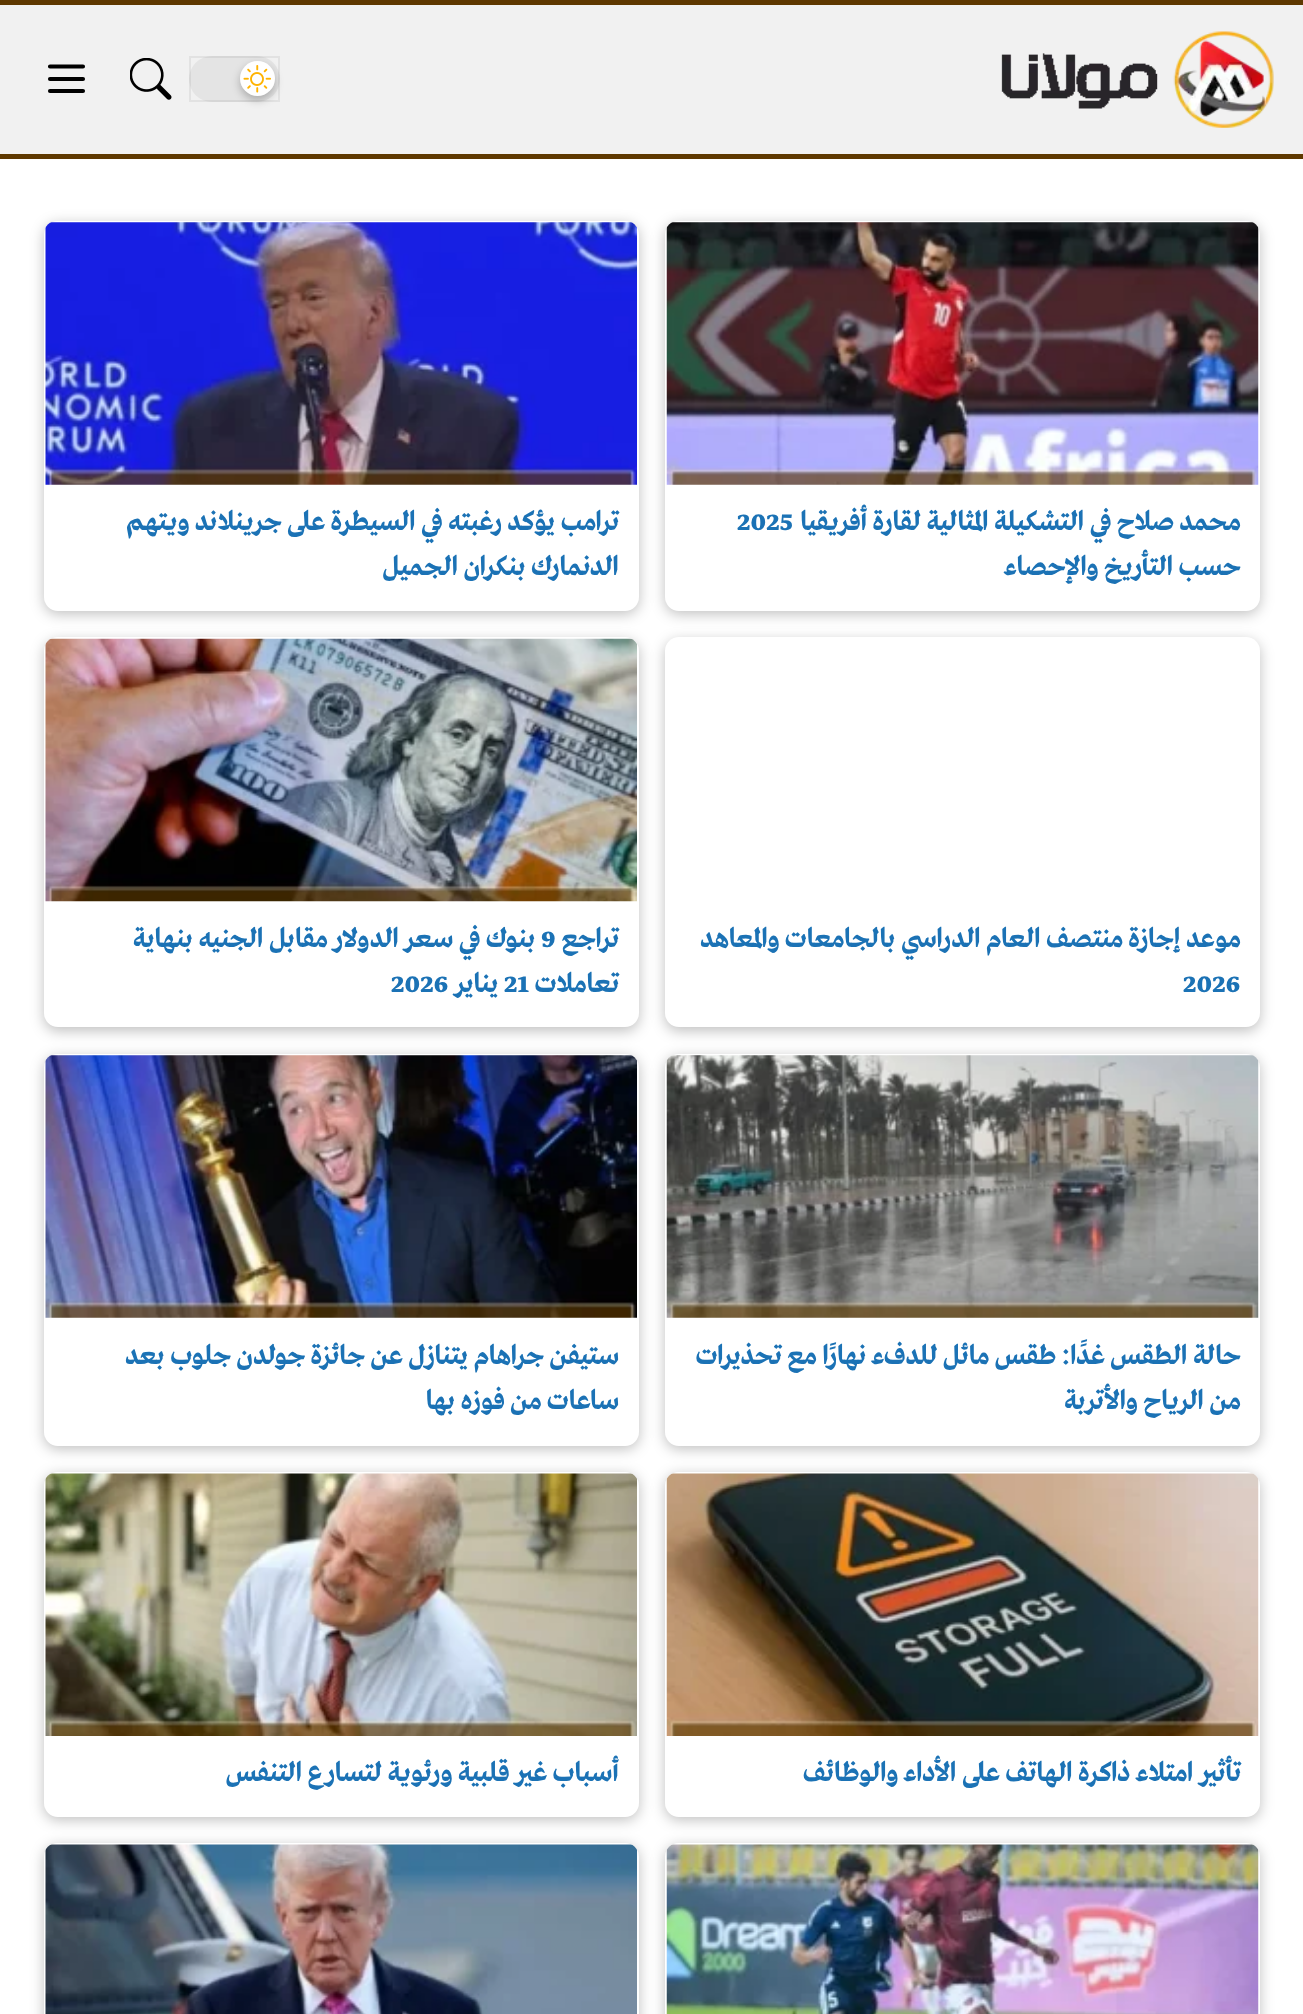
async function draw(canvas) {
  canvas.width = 1303
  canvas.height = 2014
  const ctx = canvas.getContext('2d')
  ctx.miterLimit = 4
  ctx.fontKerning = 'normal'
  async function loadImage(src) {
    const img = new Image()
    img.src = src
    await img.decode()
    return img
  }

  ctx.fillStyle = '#fff'
  ctx.fillRect(0, 0, 1303, 2014)
  ctx.fillStyle = '#f1f1f1'
  ctx.fillRect(0, 5, 1303, 149)
  ctx.fillStyle = '#5e3800'
  ctx.fillRect(0, 0, 1303, 5)
  ctx.fillRect(0, 154, 1303, 5)
  ctx.drawImage(await loadImage('image0.png'), 1001, 31, 273, 97)
  ctx.fillStyle = '#e4e4e4'
  ctx.beginPath()
  ctx.roundRect(189, 56, 91, 46, 23)
  ctx.fill()
  ctx.strokeStyle = '#0000000f'
  ctx.lineWidth = 2
  ctx.strokeRect(190, 57, 89, 44)
  ctx.fillStyle = '#00000040'
  ctx.filter = 'blur(4.5px)'
  ctx.beginPath()
  ctx.roundRect(240, 65, 35, 35, 17.5)
  ctx.fill()
  ctx.filter = 'none'
  ctx.fillStyle = '#fff'
  ctx.beginPath()
  ctx.arc(257.5, 78.5, 17.5, 0, 2 * Math.PI)
  ctx.fill()
  ctx.drawImage(await loadImage('image1.png'), 243, 65, 28, 28)
  ctx.drawImage(await loadImage('image2.png'), 130, 58, 42, 42)
  ctx.beginPath()
  ctx.moveTo(50, 66.5)
  ctx.lineTo(83, 66.5)
  ctx.moveTo(50, 79)
  ctx.lineTo(83, 79)
  ctx.moveTo(50, 91)
  ctx.lineTo(83, 91)
  ctx.strokeStyle = '#000'
  ctx.lineWidth = 4.1
  ctx.lineCap = 'round'
  ctx.lineJoin = 'round'
  ctx.stroke()
  ctx.fillStyle = '#00000040'
  ctx.filter = 'blur(7px)'
  ctx.beginPath()
  ctx.roundRect(665, 224, 595, 390, 14)
  ctx.fill()
  ctx.filter = 'none'
  ctx.fillStyle = '#fff'
  ctx.beginPath()
  ctx.roundRect(665, 221, 595, 390, 14)
  ctx.fill()
  ctx.drawImage(await loadImage('image3.png'), 666, 222, 593, 263)
  ctx.direction = 'rtl'
  ctx.font = 'bold 28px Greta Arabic'
  ctx.fillStyle = '#1b72b5'
  ctx.fillText('محمد صلاح في التشكيلة المثالية لقارة أفريقيا', 1241, 530)
  ctx.direction = 'ltr'
  ctx.fillText('2025', 737, 530)
  ctx.direction = 'rtl'
  ctx.fillText('حسب التأريخ والإحصاء', 1241, 575)
  ctx.fillStyle = '#00000040'
  ctx.filter = 'blur(7px)'
  ctx.beginPath()
  ctx.roundRect(44, 224, 595, 390, 14)
  ctx.fill()
  ctx.filter = 'none'
  ctx.fillStyle = '#fff'
  ctx.beginPath()
  ctx.roundRect(44, 221, 595, 390, 14)
  ctx.fill()
  ctx.drawImage(await loadImage('image4.png'), 45, 222, 592, 263)
  ctx.fillStyle = '#1b72b5'
  ctx.fillText('ترامب يؤكد رغبته في السيطرة على جرينلاند ويتهم', 619, 530)
  ctx.fillText('الدنمارك بنكران الجميل', 619, 575)
  ctx.fillStyle = '#00000040'
  ctx.filter = 'blur(7px)'
  ctx.beginPath()
  ctx.roundRect(665, 641, 595, 390, 14)
  ctx.fill()
  ctx.filter = 'none'
  ctx.fillStyle = '#fff'
  ctx.beginPath()
  ctx.roundRect(665, 637, 595, 390, 14)
  ctx.fill()
  ctx.fillStyle = '#1b72b5'
  ctx.fillText('موعد إجازة منتصف العام الدراسي بالجامعات والمعاهد', 1241, 947)
  ctx.direction = 'ltr'
  ctx.fillText('2026', 1183, 992)
  ctx.fillStyle = '#00000040'
  ctx.filter = 'blur(7px)'
  ctx.beginPath()
  ctx.roundRect(44, 641, 595, 390, 14)
  ctx.fill()
  ctx.filter = 'none'
  ctx.fillStyle = '#fff'
  ctx.beginPath()
  ctx.roundRect(44, 637, 595, 390, 14)
  ctx.fill()
  ctx.drawImage(await loadImage('image5.png'), 45, 638, 592, 264)
  ctx.direction = 'rtl'
  ctx.fillStyle = '#1b72b5'
  ctx.fillText('تراجع', 619, 947)
  ctx.direction = 'ltr'
  ctx.fillText('9', 541, 947)
  ctx.direction = 'rtl'
  ctx.fillText('بنوك في سعر الدولار مقابل الجنيه بنهاية', 535, 947)
  ctx.fillText('تعاملات', 619, 992)
  ctx.direction = 'ltr'
  ctx.fillText('21', 504, 992)
  ctx.direction = 'rtl'
  ctx.fillText('يناير', 498, 992)
  ctx.direction = 'ltr'
  ctx.fillText('2026', 391, 992)
  ctx.fillStyle = '#00000040'
  ctx.filter = 'blur(7px)'
  ctx.beginPath()
  ctx.roundRect(665, 1057, 595, 392, 14)
  ctx.fill()
  ctx.filter = 'none'
  ctx.fillStyle = '#fff'
  ctx.beginPath()
  ctx.roundRect(665, 1054, 595, 392, 14)
  ctx.fill()
  ctx.drawImage(await loadImage('image6.png'), 666, 1055, 593, 263)
  ctx.direction = 'rtl'
  ctx.fillStyle = '#1b72b5'
  ctx.fillText('حالة الطقس غدًا: طقس مائل للدفء نهارًا مع تحذيرات', 1241, 1364)
  ctx.fillText('من الرياح والأتربة', 1241, 1409)
  ctx.fillStyle = '#00000040'
  ctx.filter = 'blur(7px)'
  ctx.beginPath()
  ctx.roundRect(44, 1057, 595, 392, 14)
  ctx.fill()
  ctx.filter = 'none'
  ctx.fillStyle = '#fff'
  ctx.beginPath()
  ctx.roundRect(44, 1054, 595, 392, 14)
  ctx.fill()
  ctx.drawImage(await loadImage('image7.png'), 45, 1055, 592, 263)
  ctx.fillStyle = '#1b72b5'
  ctx.fillText('ستيفن جراهام يتنازل عن جائزة جولدن جلوب بعد', 619, 1364)
  ctx.fillText('ساعات من فوزه بها', 619, 1409)
  ctx.fillStyle = '#00000040'
  ctx.filter = 'blur(7px)'
  ctx.beginPath()
  ctx.roundRect(665, 1475, 595, 345, 14)
  ctx.fill()
  ctx.filter = 'none'
  ctx.fillStyle = '#fff'
  ctx.beginPath()
  ctx.roundRect(665, 1472, 595, 345, 14)
  ctx.fill()
  ctx.drawImage(await loadImage('image8.png'), 666, 1473, 593, 263)
  ctx.fillStyle = '#1b72b5'
  ctx.fillText('تأثير امتلاء ذاكرة الهاتف على الأداء والوظائف', 1241, 1781)
  ctx.fillStyle = '#00000040'
  ctx.filter = 'blur(7px)'
  ctx.beginPath()
  ctx.roundRect(44, 1475, 595, 345, 14)
  ctx.fill()
  ctx.filter = 'none'
  ctx.fillStyle = '#fff'
  ctx.beginPath()
  ctx.roundRect(44, 1472, 595, 345, 14)
  ctx.fill()
  ctx.drawImage(await loadImage('image9.png'), 45, 1473, 592, 263)
  ctx.fillStyle = '#1b72b5'
  ctx.fillText('أسباب غير قلبية ورئوية لتسارع التنفس', 619, 1781)
  ctx.fillStyle = '#00000040'
  ctx.filter = 'blur(7px)'
  ctx.beginPath()
  ctx.roundRect(665, 1846, 595, 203, 14)
  ctx.fill()
  ctx.filter = 'none'
  ctx.fillStyle = '#fff'
  ctx.beginPath()
  ctx.roundRect(665, 1843, 595, 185, 14)
  ctx.fill()
  ctx.drawImage(await loadImage('image10.png'), 666, 1844, 593, 170)
  ctx.fillStyle = '#00000040'
  ctx.filter = 'blur(7px)'
  ctx.beginPath()
  ctx.roundRect(44, 1846, 595, 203, 14)
  ctx.fill()
  ctx.filter = 'none'
  ctx.fillStyle = '#fff'
  ctx.beginPath()
  ctx.roundRect(44, 1843, 595, 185, 14)
  ctx.fill()
  ctx.drawImage(await loadImage('image11.png'), 45, 1844, 592, 170)
}

draw(document.querySelector('canvas'))
